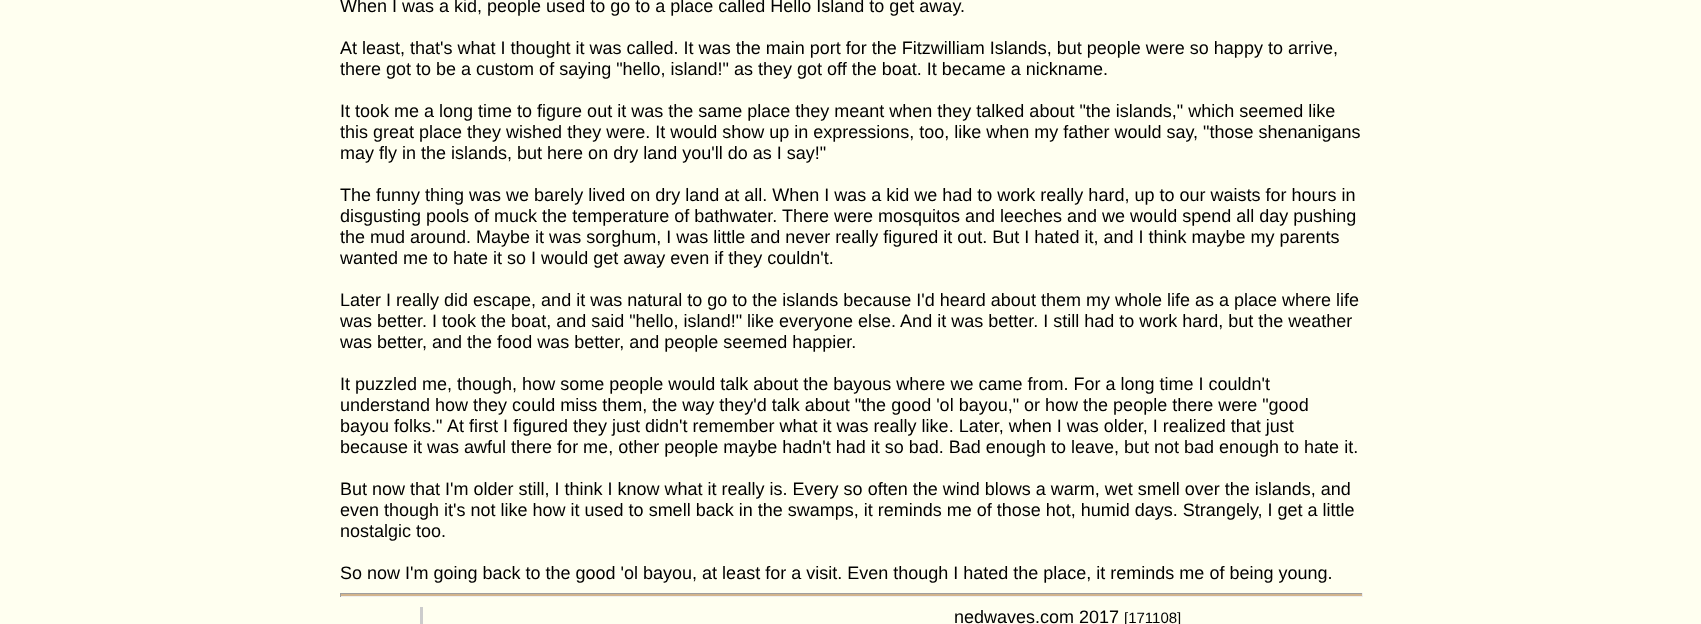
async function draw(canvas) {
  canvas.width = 1701
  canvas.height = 624
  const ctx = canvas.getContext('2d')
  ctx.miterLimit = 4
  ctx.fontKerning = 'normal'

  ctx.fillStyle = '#fffff0'
  ctx.fillRect(0, 0, 1701, 624)
  ctx.font = '18px Liberation Sans'
  ctx.fillStyle = '#000'
  ctx.fillText('When I was a kid, people used to go to a place called Hello Island to get away.', 340, 12)
  ctx.fillText('At least, that\'s what I thought it was called. It was the main port for the Fitzwilliam Islands, but people were so happy to arrive,', 340, 54)
  ctx.fillText('there got to be a custom of saying "hello, island!" as they got off the boat. It became a nickname.', 340, 75)
  ctx.fillText('It took me a long time to figure out it was the same place they meant when they talked about "the islands," which seemed like', 340, 117)
  ctx.fillText('this great place they wished they were. It would show up in expressions, too, like when my father would say, "those shenanigans', 340, 138)
  ctx.fillText('may fly in the islands, but here on dry land you\'ll do as I say!"', 340, 159)
  ctx.fillText('The funny thing was we barely lived on dry land at all. When I was a kid we had to work really hard, up to our waists for hours in', 340, 201)
  ctx.fillText('disgusting pools of muck the temperature of bathwater. There were mosquitos and leeches and we would spend all day pushing', 340, 222)
  ctx.fillText('the mud around. Maybe it was sorghum, I was little and never really figured it out. But I hated it, and I think maybe my parents', 340, 243)
  ctx.fillText('wanted me to hate it so I would get away even if they couldn\'t.', 340, 264)
  ctx.fillText('Later I really did escape, and it was natural to go to the islands because I\'d heard about them my whole life as a place where life', 340, 306)
  ctx.fillText('was better. I took the boat, and said "hello, island!" like everyone else. And it was better. I still had to work hard, but the weather', 340, 327)
  ctx.fillText('was better, and the food was better, and people seemed happier.', 340, 348)
  ctx.fillText('It puzzled me, though, how some people would talk about the bayous where we came from. For a long time I couldn\'t', 340, 390)
  ctx.fillText('understand how they could miss them, the way they\'d talk about "the good \'ol bayou," or how the people there were "good', 340, 411)
  ctx.fillText('bayou folks."', 340, 432)
  ctx.fillText('At first I figured they just didn\'t remember what it was really like. Later, when I was older, I realized that just', 447, 432)
  ctx.fillText('because it was awful there for me, other people maybe hadn\'t had it so bad. Bad enough to leave, but not bad enough to hate it.', 340, 453)
  ctx.fillText('But now that I\'m older still, I think I know what it really is. Every so often the wind blows a warm, wet smell over the islands, and', 340, 495)
  ctx.fillText('even though it\'s not like how it used to smell back in the swamps, it reminds me of those hot, humid days. Strangely, I get a little', 340, 516)
  ctx.fillText('nostalgic too.', 340, 537)
  ctx.fillText('So now I\'m going back to the good \'ol bayou, at least for a visit. Even though I hated the place, it reminds me of being young.', 340, 579)
  ctx.fillStyle = '#d2b48c'
  ctx.fillRect(340, 594, 1023, 2)
  ctx.fillStyle = '#9f9f9f'
  ctx.fillRect(340, 593, 1023, 1)
  ctx.fillStyle = '#eee'
  ctx.fillRect(1362, 593, 1, 4)
  ctx.fillRect(340, 596, 1023, 1)
  ctx.fillStyle = '#9f9f9f'
  ctx.fillRect(340, 593, 1, 4)
  ctx.fillStyle = '#ccc'
  ctx.fillRect(420, 607, 3, 17)
  ctx.fillStyle = '#000'
  ctx.fillText('nedwaves.com 2017', 954, 623)
  ctx.font = '15px Liberation Sans'
  ctx.fillText('[171108]', 1124, 623)
}

draw(document.querySelector('canvas'))
